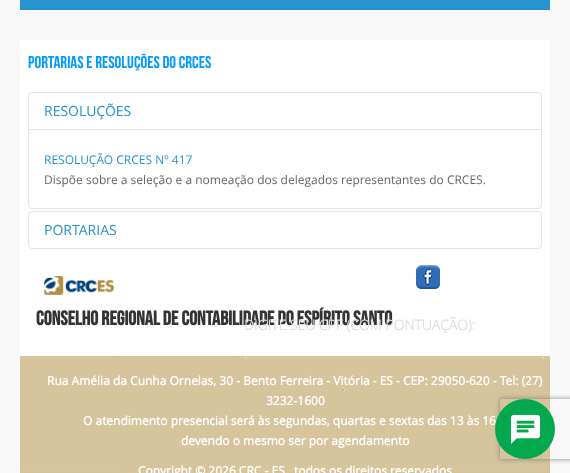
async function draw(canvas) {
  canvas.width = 570
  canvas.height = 473
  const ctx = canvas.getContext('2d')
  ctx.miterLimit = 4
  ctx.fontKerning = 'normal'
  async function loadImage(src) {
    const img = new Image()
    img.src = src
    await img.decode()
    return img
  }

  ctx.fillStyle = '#f8f8f8'
  ctx.fillRect(0, 0, 570, 473)
  ctx.fillStyle = '#2594cc'
  ctx.fillRect(20, 0, 530, 10)
  ctx.fillStyle = '#fff'
  ctx.fillRect(20, 40, 530, 316)
  ctx.font = '17px Bebas Neue'
  ctx.fillStyle = '#09f'
  ctx.fillText('PORTARIAS E RESOLUÇÕES DO CRCES', 28, 68)
  ctx.beginPath()
  ctx.roundRect(28.5, 92.5, 513, 116, 3.5)
  ctx.strokeStyle = '#e5e5e5'
  ctx.stroke()
  ctx.font = '14px Open Sans'
  ctx.fillStyle = '#2592cb'
  ctx.fillText('RESOLUÇÕES', 44, 116)
  ctx.fillStyle = '#e5e5e5'
  ctx.fillRect(29, 129, 512, 1)
  ctx.font = '12px Open Sans'
  ctx.fillStyle = '#2592cb'
  ctx.fillText('RESOLUÇÃO CRCES Nº 417', 44, 164)
  ctx.fillStyle = '#666'
  ctx.fillText('Dispõe sobre a seleção e a nomeação dos delegados representantes do CRCES.', 44, 184)
  ctx.beginPath()
  ctx.roundRect(28.5, 211.5, 513, 37, 3.5)
  ctx.stroke()
  ctx.font = '14px Open Sans'
  ctx.fillStyle = '#2592cb'
  ctx.fillText('PORTARIAS', 44, 235)
  ctx.drawImage(await loadImage('image0.png'), 416, 265, 24, 24)
  ctx.drawImage(await loadImage('image1.png'), 44, 276, 70, 19)
  ctx.font = 'bold 20px Bebas Neue'
  ctx.fillStyle = '#333'
  ctx.fillText('CONSELHO REGIONAL DE CONTABILIDADE DO ESPÍRITO SANTO', 36, 325)
  ctx.drawImage(await loadImage('image2.png'), 20, 356, 530, 117)
  ctx.font = 'bold 12px Open Sans'
  ctx.fillStyle = '#fff'
  ctx.fillText('Rua Amélia da Cunha Ornelas, 30 - Bento Ferreira - Vitória - ES - CEP: 29050-620 - Tel: (27)', 47, 385)
  ctx.fillText('3232-1600', 266, 405)
  ctx.fillText('O atendimento presencial será às segundas, quartas e sextas das 13 às 16', 83, 425)
  ctx.fillText('devendo o mesmo ser por agendamento', 181, 445)
  ctx.fillText('Copyright © 2026 CRC - ES , todos os direitos reservados', 138, 475)
  ctx.save()
  ctx.beginPath()
  ctx.moveTo(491, 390)
  ctx.lineTo(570, 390)
  ctx.lineTo(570, 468)
  ctx.lineTo(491, 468)
  ctx.closePath()
  ctx.moveTo(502, 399)
  ctx.lineTo(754, 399)
  ctx.bezierCurveTo(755, 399, 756, 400, 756, 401)
  ctx.lineTo(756, 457)
  ctx.bezierCurveTo(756, 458, 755, 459, 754, 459)
  ctx.lineTo(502, 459)
  ctx.bezierCurveTo(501, 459, 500, 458, 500, 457)
  ctx.lineTo(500, 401)
  ctx.bezierCurveTo(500, 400, 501, 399, 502, 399)
  ctx.closePath()
  ctx.clip('evenodd')
  ctx.fillStyle = '#808080'
  ctx.filter = 'blur(2.5px)'
  ctx.beginPath()
  ctx.roundRect(500, 399, 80, 60, 2)
  ctx.fill()
  ctx.filter = 'none'
  ctx.restore()
  ctx.fillStyle = '#03a84e'
  ctx.beginPath()
  ctx.arc(525, 429, 30, 0, 2 * Math.PI)
  ctx.fill()
  ctx.font = 'bold 14px "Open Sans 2"'
  ctx.fillStyle = '#dedede'
  ctx.fillText('DIGITE SEU CPF (COM PONTUAÇÃO):', 244, 330)
  ctx.fillStyle = '#fff'
  ctx.beginPath()
  ctx.moveTo(254, 352)
  ctx.lineTo(535, 352)
  ctx.bezierCurveTo(540, 352, 544, 356, 544, 361)
  ctx.lineTo(544, 360)
  ctx.bezierCurveTo(544, 355, 540, 351, 535, 351)
  ctx.lineTo(254, 351)
  ctx.bezierCurveTo(249, 351, 245, 355, 245, 360)
  ctx.lineTo(245, 361)
  ctx.bezierCurveTo(245, 356, 249, 352, 254, 352)
  ctx.closePath()
  ctx.fill()
  ctx.drawImage(await loadImage('image3.png'), 510, 414, 31, 30)
}

draw(document.querySelector('canvas'))
